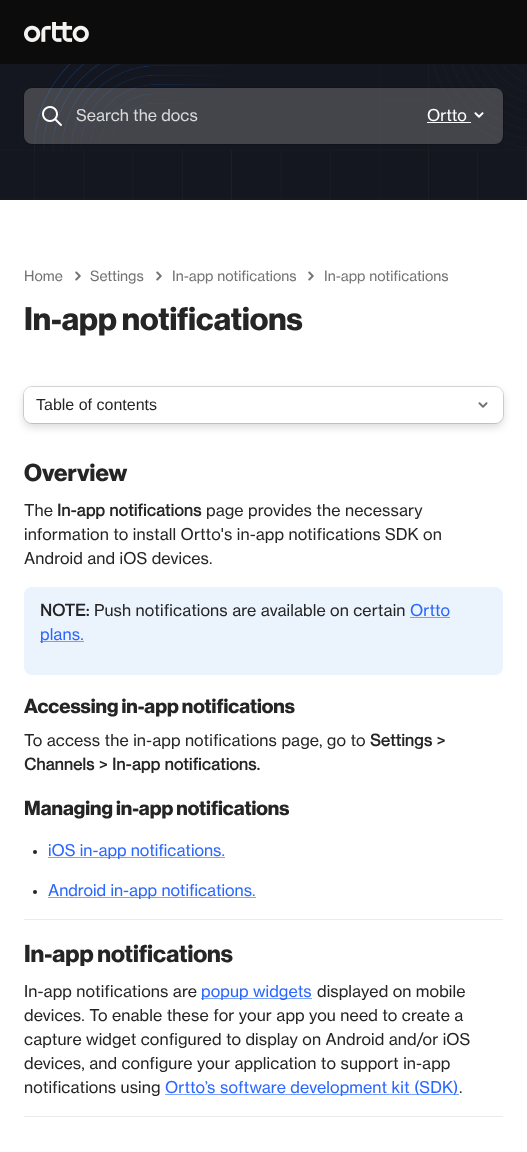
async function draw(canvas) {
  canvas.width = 527
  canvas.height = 1152
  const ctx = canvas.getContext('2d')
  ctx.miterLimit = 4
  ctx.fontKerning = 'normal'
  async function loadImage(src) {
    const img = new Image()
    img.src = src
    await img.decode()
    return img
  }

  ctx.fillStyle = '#fff'
  ctx.fillRect(0, 0, 527, 1152)
  ctx.drawImage(await loadImage('image0.png'), 0, 64, 527, 136)
  ctx.fillStyle = '#0c0c0c'
  ctx.fillRect(0, 0, 527, 64)
  ctx.drawImage(await loadImage('image1.png'), 24, 22, 65, 20)
  ctx.beginPath()
  ctx.roundRect(23.5, 87.5, 480, 57, 8.5)
  ctx.strokeStyle = '#00000026'
  ctx.stroke()
  ctx.fillStyle = '#ffffff33'
  ctx.beginPath()
  ctx.roundRect(24, 88, 479, 56, 8)
  ctx.fill()
  ctx.drawImage(await loadImage('image2.png'), 42, 106, 20, 20)
  ctx.font = '16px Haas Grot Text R'
  ctx.fillStyle = '#d9dadb'
  ctx.fillText('Search the docs', 76, 121)
  ctx.fillStyle = '#fff'
  ctx.fillText('Ortto', 427, 121)
  ctx.fillRect(427, 122, 44, 1)
  ctx.drawImage(await loadImage('image3.png'), 474, 112, 10, 6)
  ctx.font = '14px Haas Grot Text R'
  ctx.fillStyle = '#737373'
  ctx.fillText('Home', 24, 281)
  ctx.drawImage(await loadImage('image4.png'), 75, 271, 6, 10)
  ctx.fillText('Settings', 90, 281)
  ctx.drawImage(await loadImage('image4.png'), 156, 271, 6, 10)
  ctx.fillText('In-app notifications', 172, 281)
  ctx.drawImage(await loadImage('image4.png'), 308, 271, 6, 10)
  ctx.fillText('In-app notifications', 324, 281)
  ctx.font = 'bold 32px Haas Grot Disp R'
  ctx.fillStyle = '#252525'
  ctx.fillText('In-app notifications', 24, 330)
  ctx.fillStyle = '#00000026'
  ctx.filter = 'blur(4px)'
  ctx.beginPath()
  ctx.roundRect(24, 391, 479, 36, 8)
  ctx.fill()
  ctx.filter = 'none'
  ctx.beginPath()
  ctx.roundRect(23.5, 386.5, 480, 37, 8.5)
  ctx.stroke()
  ctx.fillStyle = '#fff'
  ctx.beginPath()
  ctx.roundRect(24, 387, 479, 36, 8)
  ctx.fill()
  ctx.font = '16px Liberation Sans'
  ctx.fillStyle = '#252525'
  ctx.fillText('Table of contents', 36, 410)
  ctx.drawImage(await loadImage('image5.png'), 478, 402, 10, 6)
  ctx.font = 'bold 24px Haas Grot Disp R'
  ctx.fillText('Overview', 24, 481)
  ctx.letterSpacing = '0.1px'
  ctx.font = '16px Haas Grot Text R'
  ctx.fillText('The', 24, 516)
  ctx.font = 'bold 16px Haas Grot Text R'
  ctx.fillText('In-app notifications', 57, 516)
  ctx.font = '16px Haas Grot Text R'
  ctx.fillText('page provides the necessary', 206, 516)
  ctx.fillText('information to install Ortto\'s in-app notifications SDK on', 24, 540)
  ctx.fillText('Android and iOS devices.', 24, 564)
  ctx.fillStyle = '#ebf3fd'
  ctx.beginPath()
  ctx.roundRect(24, 587, 479, 88, 8)
  ctx.fill()
  ctx.font = 'bold 16px Haas Grot Text R'
  ctx.fillStyle = '#252525'
  ctx.fillText('NOTE:', 40, 616)
  ctx.font = '16px Haas Grot Text R'
  ctx.fillText('Push notifications are available on certain', 94, 616)
  ctx.fillStyle = '#2a66ff'
  ctx.fillText('Ortto', 410, 616)
  ctx.fillStyle = '#779efe'
  ctx.fillRect(410, 617, 40, 1)
  ctx.fillRect(40, 641, 44, 1)
  ctx.fillStyle = '#2a66ff'
  ctx.fillText('plans.', 40, 640)
  ctx.letterSpacing = '0px'
  ctx.font = 'bold 20px Haas Grot Disp R'
  ctx.fillStyle = '#252525'
  ctx.fillText('Accessing in-app notifications', 24, 713)
  ctx.letterSpacing = '0.1px'
  ctx.font = '16px Haas Grot Text R'
  ctx.fillText('To access the in-app notifications page, go to', 24, 746)
  ctx.font = 'bold 16px Haas Grot Text R'
  ctx.fillText('Settings >', 370, 746)
  ctx.fillText('Channels > In-app notifications.', 24, 770)
  ctx.letterSpacing = '0px'
  ctx.font = 'bold 20px Haas Grot Disp R'
  ctx.fillText('Managing in-app notifications', 24, 815)
  ctx.beginPath()
  ctx.arc(35, 852, 2, 0, 2 * Math.PI)
  ctx.fill()
  ctx.fillStyle = '#7fa3ff'
  ctx.fillRect(48, 857, 177, 1)
  ctx.font = '16px Haas Grot Text R'
  ctx.fillStyle = '#2a66ff'
  ctx.fillText('iOS in-app notifications.', 48, 856)
  ctx.fillStyle = '#252525'
  ctx.beginPath()
  ctx.arc(35, 892, 2, 0, 2 * Math.PI)
  ctx.fill()
  ctx.fillStyle = '#7fa3ff'
  ctx.fillRect(48, 897, 208, 1)
  ctx.fillStyle = '#2a66ff'
  ctx.fillText('Android in-app notifications.', 48, 896)
  ctx.fillStyle = '#ebebeb'
  ctx.fillRect(24, 919, 479, 1)
  ctx.font = 'bold 24px Haas Grot Disp R'
  ctx.fillStyle = '#252525'
  ctx.fillText('In-app notifications', 24, 962)
  ctx.letterSpacing = '0.1px'
  ctx.font = '16px Haas Grot Text R'
  ctx.fillText('In-app notifications are', 24, 997)
  ctx.fillStyle = '#7fa3ff'
  ctx.fillRect(201, 998, 111, 1)
  ctx.fillStyle = '#2a66ff'
  ctx.fillText('popup widgets', 201, 997)
  ctx.fillStyle = '#252525'
  ctx.fillText('displayed on mobile', 317, 997)
  ctx.fillText('devices. To enable these for your app you need to create a', 24, 1021)
  ctx.fillText('capture widget configured to display on Android and/or iOS', 24, 1045)
  ctx.fillText('devices, and configure your application to support in-app', 24, 1069)
  ctx.fillText('notifications using', 24, 1093)
  ctx.fillStyle = '#7fa3ff'
  ctx.fillRect(165, 1094, 294, 1)
  ctx.fillStyle = '#2a66ff'
  ctx.fillText('Ortto’s software development kit (SDK)', 165, 1093)
  ctx.fillStyle = '#252525'
  ctx.fillText('.', 459, 1093)
  ctx.fillStyle = '#ebebeb'
  ctx.fillRect(24, 1116, 479, 1)
}

draw(document.querySelector('canvas'))
